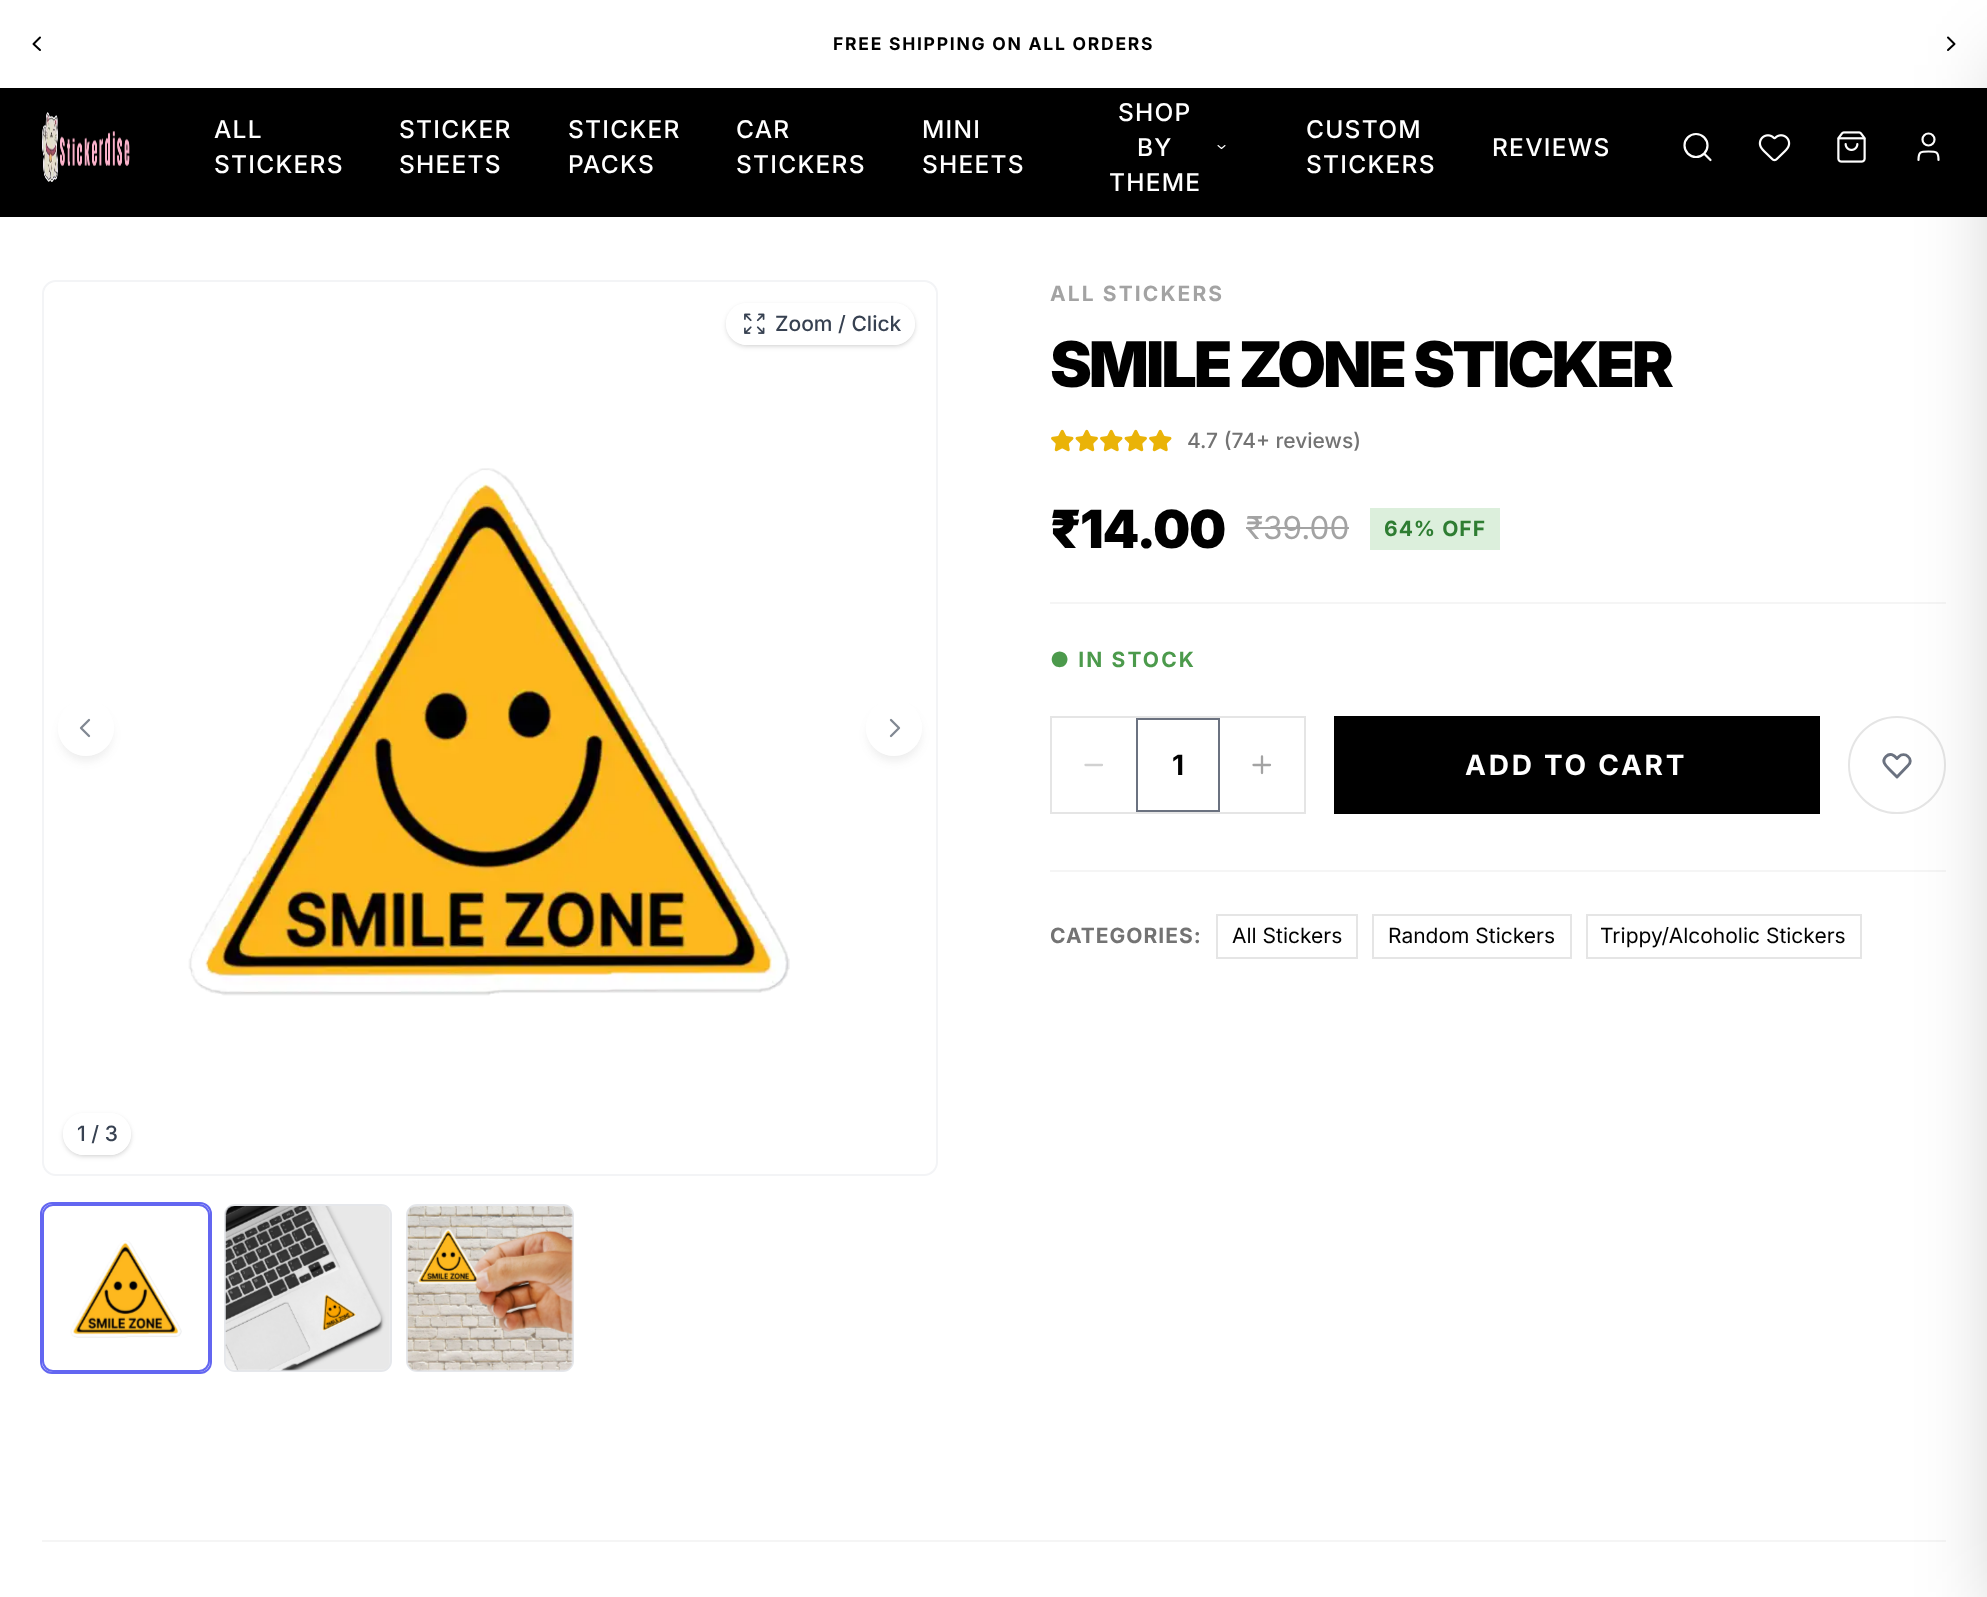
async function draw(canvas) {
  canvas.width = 1987
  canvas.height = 1597
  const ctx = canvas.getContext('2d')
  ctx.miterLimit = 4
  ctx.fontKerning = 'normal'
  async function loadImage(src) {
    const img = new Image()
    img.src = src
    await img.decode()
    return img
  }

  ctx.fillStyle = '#fff'
  ctx.fillRect(0, 0, 1987, 1597)
  ctx.beginPath()
  ctx.moveTo(40, 50)
  ctx.lineTo(33.5, 44)
  ctx.lineTo(40, 37.5)
  ctx.strokeStyle = '#000'
  ctx.lineWidth = 2
  ctx.lineCap = 'round'
  ctx.lineJoin = 'round'
  ctx.stroke()
  ctx.letterSpacing = '1.75px'
  ctx.font = 'bold 17.5px Inter'
  ctx.fillStyle = '#000'
  ctx.fillText('FREE SHIPPING ON ALL ORDERS', 833, 50)
  ctx.beginPath()
  ctx.moveTo(1948, 50)
  ctx.lineTo(1954.5, 44)
  ctx.lineTo(1948, 37.5)
  ctx.stroke()
  ctx.fillRect(0, 88, 1987, 129)
  ctx.drawImage(await loadImage('image0.png'), 42, 112, 88, 70)
  ctx.letterSpacing = '1.25px'
  ctx.font = '500 24.5px Inter'
  ctx.fillStyle = '#fff'
  ctx.fillText('ALL', 214, 138)
  ctx.fillText('STICKERS', 214, 173)
  ctx.fillText('STICKER', 399, 138)
  ctx.fillText('SHEETS', 399, 173)
  ctx.fillText('STICKER', 568, 138)
  ctx.fillText('PACKS', 568, 173)
  ctx.fillText('CAR', 736, 138)
  ctx.fillText('STICKERS', 736, 173)
  ctx.fillText('MINI', 922, 138)
  ctx.fillText('SHEETS', 922, 173)
  ctx.fillText('SHOP', 1118, 121)
  ctx.fillText('BY', 1137, 156)
  ctx.fillText('THEME', 1109, 191)
  ctx.beginPath()
  ctx.moveTo(1218, 145.5)
  ctx.lineTo(1221.5, 148.5)
  ctx.lineTo(1225, 145.5)
  ctx.strokeStyle = '#fff'
  ctx.lineWidth = 1.1
  ctx.stroke()
  ctx.fillText('CUSTOM', 1306, 138)
  ctx.fillText('STICKERS', 1306, 173)
  ctx.fillText('REVIEWS', 1492, 156)
  ctx.beginPath()
  ctx.moveTo(1710.5, 160)
  ctx.lineTo(1704.5, 154)
  ctx.lineWidth = 2.2
  ctx.stroke()
  ctx.beginPath()
  ctx.arc(1696, 145.5, 11.5, 0, 2 * Math.PI)
  ctx.stroke()
  ctx.drawImage(await loadImage('image1.png'), 1758, 134, 33, 28)
  ctx.drawImage(await loadImage('image2.png'), 1837, 131, 29, 32)
  ctx.beginPath()
  ctx.moveTo(1938.5, 160)
  ctx.bezierCurveTo(1938.5, 151.5, 1936.5, 151.5, 1928.5, 151.5)
  ctx.bezierCurveTo(1920.5, 151.5, 1918.5, 151.5, 1918.5, 160)
  ctx.stroke()
  ctx.beginPath()
  ctx.arc(1928.5, 139.5, 6, 0, 2 * Math.PI)
  ctx.stroke()
  ctx.beginPath()
  ctx.roundRect(43, 281, 894, 894, 13)
  ctx.strokeStyle = '#f3f4f6'
  ctx.lineWidth = 2
  ctx.lineJoin = 'miter'
  ctx.stroke()
  ctx.save()
  ctx.beginPath()
  ctx.moveTo(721, 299)
  ctx.lineTo(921, 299)
  ctx.lineTo(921, 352)
  ctx.lineTo(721, 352)
  ctx.closePath()
  ctx.moveTo(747, 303)
  ctx.lineTo(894, 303)
  ctx.bezierCurveTo(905.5, 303, 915, 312.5, 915, 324)
  ctx.bezierCurveTo(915, 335.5, 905.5, 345, 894, 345)
  ctx.lineTo(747, 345)
  ctx.bezierCurveTo(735.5, 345, 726, 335.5, 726, 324)
  ctx.bezierCurveTo(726, 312.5, 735.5, 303, 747, 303)
  ctx.closePath()
  ctx.clip('evenodd')
  ctx.fillStyle = '#0000001a'
  ctx.filter = 'blur(2px)'
  ctx.beginPath()
  ctx.roundRect(728, 306, 186, 39, 19.5)
  ctx.fill()
  ctx.filter = 'none'
  ctx.restore()
  ctx.save()
  ctx.beginPath()
  ctx.moveTo(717, 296)
  ctx.lineTo(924, 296)
  ctx.lineTo(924, 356)
  ctx.lineTo(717, 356)
  ctx.closePath()
  ctx.moveTo(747, 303)
  ctx.lineTo(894, 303)
  ctx.bezierCurveTo(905.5, 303, 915, 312.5, 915, 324)
  ctx.bezierCurveTo(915, 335.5, 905.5, 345, 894, 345)
  ctx.lineTo(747, 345)
  ctx.bezierCurveTo(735.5, 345, 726, 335.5, 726, 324)
  ctx.bezierCurveTo(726, 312.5, 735.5, 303, 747, 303)
  ctx.closePath()
  ctx.clip('evenodd')
  ctx.fillStyle = '#0000001a'
  ctx.filter = 'blur(2.5px)'
  ctx.beginPath()
  ctx.roundRect(726, 305, 189, 42, 21)
  ctx.fill()
  ctx.filter = 'none'
  ctx.restore()
  ctx.fillStyle = '#ffffffcc'
  ctx.beginPath()
  ctx.roundRect(726, 303, 189, 42, 21)
  ctx.fill()
  ctx.drawImage(await loadImage('image3.png'), 744, 313, 21, 21)
  ctx.letterSpacing = '0px'
  ctx.font = '500 21px Inter'
  ctx.fillStyle = '#374151'
  ctx.fillText('Zoom / Click', 775, 331)
  ctx.save()
  ctx.beginPath()
  ctx.moveTo(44, 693)
  ctx.lineTo(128, 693)
  ctx.lineTo(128, 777)
  ctx.lineTo(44, 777)
  ctx.closePath()
  ctx.moveTo(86, 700)
  ctx.bezierCurveTo(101.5, 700, 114, 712.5, 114, 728)
  ctx.bezierCurveTo(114, 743.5, 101.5, 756, 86, 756)
  ctx.bezierCurveTo(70.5, 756, 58, 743.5, 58, 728)
  ctx.bezierCurveTo(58, 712.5, 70.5, 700, 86, 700)
  ctx.closePath()
  ctx.clip('evenodd')
  ctx.fillStyle = '#4d4d4d1a'
  ctx.filter = 'blur(5px)'
  ctx.beginPath()
  ctx.roundRect(60, 709, 52, 52, 26)
  ctx.fill()
  ctx.filter = 'none'
  ctx.restore()
  ctx.fillStyle = '#ffffffcc'
  ctx.beginPath()
  ctx.arc(86, 728, 28, 0, 2 * Math.PI)
  ctx.fill()
  ctx.beginPath()
  ctx.moveTo(89, 736)
  ctx.lineTo(81, 728)
  ctx.lineTo(89, 720)
  ctx.strokeStyle = '#818892'
  ctx.lineWidth = 2.3
  ctx.lineJoin = 'round'
  ctx.stroke()
  ctx.drawImage(await loadImage('image4.png'), 188, 468, 602, 528)
  ctx.save()
  ctx.beginPath()
  ctx.moveTo(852, 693)
  ctx.lineTo(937, 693)
  ctx.lineTo(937, 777)
  ctx.lineTo(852, 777)
  ctx.closePath()
  ctx.moveTo(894, 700)
  ctx.bezierCurveTo(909.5, 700, 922, 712.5, 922, 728)
  ctx.bezierCurveTo(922, 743.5, 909.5, 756, 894, 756)
  ctx.bezierCurveTo(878.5, 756, 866, 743.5, 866, 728)
  ctx.bezierCurveTo(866, 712.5, 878.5, 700, 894, 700)
  ctx.closePath()
  ctx.clip('evenodd')
  ctx.fillStyle = '#4d4d4d1a'
  ctx.filter = 'blur(5px)'
  ctx.beginPath()
  ctx.roundRect(868, 709, 53, 52, 26)
  ctx.fill()
  ctx.filter = 'none'
  ctx.restore()
  ctx.beginPath()
  ctx.arc(894, 728, 28, 0, 2 * Math.PI)
  ctx.fill()
  ctx.beginPath()
  ctx.moveTo(891, 720)
  ctx.lineTo(899, 728)
  ctx.lineTo(891, 736)
  ctx.stroke()
  ctx.save()
  ctx.beginPath()
  ctx.moveTo(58, 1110)
  ctx.lineTo(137, 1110)
  ctx.lineTo(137, 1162)
  ctx.lineTo(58, 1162)
  ctx.closePath()
  ctx.moveTo(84, 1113)
  ctx.lineTo(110, 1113)
  ctx.bezierCurveTo(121.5, 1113, 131, 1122.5, 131, 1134)
  ctx.bezierCurveTo(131, 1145.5, 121.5, 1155, 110, 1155)
  ctx.lineTo(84, 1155)
  ctx.bezierCurveTo(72.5, 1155, 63, 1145.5, 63, 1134)
  ctx.bezierCurveTo(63, 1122.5, 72.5, 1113, 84, 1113)
  ctx.closePath()
  ctx.clip('evenodd')
  ctx.fillStyle = '#0000001a'
  ctx.filter = 'blur(2px)'
  ctx.beginPath()
  ctx.roundRect(65, 1117, 65, 38, 19)
  ctx.fill()
  ctx.filter = 'none'
  ctx.restore()
  ctx.save()
  ctx.beginPath()
  ctx.moveTo(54, 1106)
  ctx.lineTo(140, 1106)
  ctx.lineTo(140, 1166)
  ctx.lineTo(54, 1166)
  ctx.closePath()
  ctx.moveTo(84, 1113)
  ctx.lineTo(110, 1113)
  ctx.bezierCurveTo(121.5, 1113, 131, 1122.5, 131, 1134)
  ctx.bezierCurveTo(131, 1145.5, 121.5, 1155, 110, 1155)
  ctx.lineTo(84, 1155)
  ctx.bezierCurveTo(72.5, 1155, 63, 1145.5, 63, 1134)
  ctx.bezierCurveTo(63, 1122.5, 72.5, 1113, 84, 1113)
  ctx.closePath()
  ctx.clip('evenodd')
  ctx.fillStyle = '#0000001a'
  ctx.filter = 'blur(2.5px)'
  ctx.beginPath()
  ctx.roundRect(63, 1115, 68, 42, 21)
  ctx.fill()
  ctx.filter = 'none'
  ctx.restore()
  ctx.fillStyle = '#ffffffe6'
  ctx.beginPath()
  ctx.roundRect(63, 1113, 68, 42, 21)
  ctx.fill()
  ctx.fillStyle = '#374151'
  ctx.fillText('1 / 3', 77, 1141)
  ctx.beginPath()
  ctx.roundRect(41, 1203, 170, 170, 11)
  ctx.strokeStyle = '#6366f1'
  ctx.lineWidth = 2
  ctx.lineJoin = 'miter'
  ctx.stroke()
  ctx.beginPath()
  ctx.roundRect(43, 1205, 166, 166, 10)
  ctx.stroke()
  ctx.drawImage(await loadImage('image5.png'), 70, 1240, 112, 98)
  ctx.beginPath()
  ctx.roundRect(225, 1205, 166, 166, 10)
  ctx.strokeStyle = '#e5e7eb'
  ctx.stroke()
  ctx.drawImage(await loadImage('image6.png'), 225, 1206, 165, 165)
  ctx.beginPath()
  ctx.roundRect(407, 1205, 166, 166, 10)
  ctx.stroke()
  ctx.drawImage(await loadImage('image7.png'), 407, 1206, 166, 165)
  ctx.letterSpacing = '2.1px'
  ctx.font = 'bold 21px Inter'
  ctx.fillStyle = '#a3a3a3'
  ctx.fillText('ALL STICKERS', 1050, 301)
  ctx.letterSpacing = '-3.1px'
  ctx.font = '900 63px Inter'
  ctx.fillStyle = '#000'
  ctx.fillText('SMILE ZONE STICKER', 1050, 387)
  ctx.drawImage(await loadImage('image8.png'), 1051, 429, 23, 23)
  ctx.drawImage(await loadImage('image9.png'), 1075, 429, 23, 23)
  ctx.drawImage(await loadImage('image8.png'), 1100, 429, 23, 23)
  ctx.drawImage(await loadImage('image9.png'), 1124, 429, 23, 23)
  ctx.drawImage(await loadImage('image8.png'), 1149, 429, 23, 23)
  ctx.letterSpacing = '0px'
  ctx.font = '500 21px Inter'
  ctx.fillStyle = '#737373'
  ctx.fillText('4.7 (74+ reviews)', 1187, 448)
  ctx.fillStyle = '#f5f5f5'
  ctx.fillRect(1050, 602, 896, 2)
  ctx.letterSpacing = '-1.25px'
  ctx.font = '900 52.5px Inter'
  ctx.fillStyle = '#000'
  ctx.fillText('₹14.00', 1050, 548)
  ctx.letterSpacing = '0px'
  ctx.font = '31.5px Inter'
  ctx.fillStyle = '#a3a3a3'
  ctx.fillText('₹39.00', 1246, 539)
  ctx.fillRect(1246, 527, 103, 2)
  ctx.fillStyle = '#dcefdc'
  ctx.fillRect(1370, 508, 130, 42)
  ctx.letterSpacing = '1px'
  ctx.font = 'bold 21px Inter'
  ctx.fillStyle = '#2e7d32'
  ctx.fillText('64% OFF', 1384, 536)
  ctx.letterSpacing = '2.1px'
  ctx.fillStyle = '#4c9a4c'
  ctx.fillText('● IN STOCK', 1050, 667)
  ctx.strokeStyle = '#e5e5e5'
  ctx.strokeRect(1051, 717, 254, 96)
  ctx.beginPath()
  ctx.moveTo(1085.5, 765)
  ctx.lineTo(1102, 765)
  ctx.strokeStyle = '#d1d1d1'
  ctx.lineWidth = 2.3
  ctx.lineJoin = 'round'
  ctx.stroke()
  ctx.strokeStyle = '#6b7280'
  ctx.lineWidth = 2
  ctx.lineJoin = 'miter'
  ctx.strokeRect(1137, 719, 82, 92)
  ctx.letterSpacing = '0px'
  ctx.font = 'bold 28px Inter'
  ctx.fillStyle = '#000'
  ctx.fillText('1', 1172, 775)
  ctx.beginPath()
  ctx.moveTo(1253.5, 765)
  ctx.lineTo(1270, 765)
  ctx.moveTo(1262, 756.5)
  ctx.lineTo(1262, 773)
  ctx.strokeStyle = '#a3a3a3'
  ctx.lineWidth = 2.3
  ctx.lineJoin = 'round'
  ctx.stroke()
  ctx.fillRect(1334, 716, 486, 98)
  ctx.letterSpacing = '2.75px'
  ctx.fillStyle = '#fff'
  ctx.fillText('ADD TO CART', 1465, 775)
  ctx.beginPath()
  ctx.arc(1897, 765, 48, 0, 2 * Math.PI)
  ctx.strokeStyle = '#e5e5e5'
  ctx.lineWidth = 2
  ctx.stroke()
  ctx.beginPath()
  ctx.moveTo(1886, 756.5)
  ctx.bezierCurveTo(1881, 761.5, 1886, 766, 1889.5, 769.5)
  ctx.lineTo(1897, 777)
  ctx.lineTo(1908, 765.5)
  ctx.bezierCurveTo(1911, 763, 1911, 759, 1908, 756.5)
  ctx.bezierCurveTo(1905.5, 754, 1901.5, 754, 1899, 756.5)
  ctx.lineTo(1897, 758.5)
  ctx.bezierCurveTo(1894, 755, 1890, 752.5, 1886, 756.5)
  ctx.closePath()
  ctx.strokeStyle = '#6b7280'
  ctx.lineWidth = 2.9
  ctx.stroke()
  ctx.fillStyle = '#f5f5f5'
  ctx.fillRect(1050, 870, 896, 2)
  ctx.letterSpacing = '1px'
  ctx.font = 'bold 21px Inter'
  ctx.fillStyle = '#737373'
  ctx.fillText('CATEGORIES:', 1050, 943)
  ctx.strokeStyle = '#e5e5e5'
  ctx.lineWidth = 2
  ctx.lineJoin = 'miter'
  ctx.strokeRect(1217, 915, 140, 43)
  ctx.letterSpacing = '0px'
  ctx.font = '21px Inter'
  ctx.fillStyle = '#000'
  ctx.fillText('All Stickers', 1232, 943)
  ctx.strokeRect(1373, 915, 198, 43)
  ctx.fillText('Random Stickers', 1388, 943)
  ctx.strokeRect(1587, 915, 274, 43)
  ctx.fillText('Trippy/Alcoholic Stickers', 1600, 943)
  ctx.fillStyle = '#f5f5f5'
  ctx.fillRect(42, 1540, 1904, 2)
  ctx.fillStyle = '#00000040'
  ctx.filter = 'blur(44px)'
  ctx.beginPath()
  ctx.rect(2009, 65, 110, 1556)
  ctx.fill()
  ctx.filter = 'none'
}

draw(document.querySelector('canvas'))
